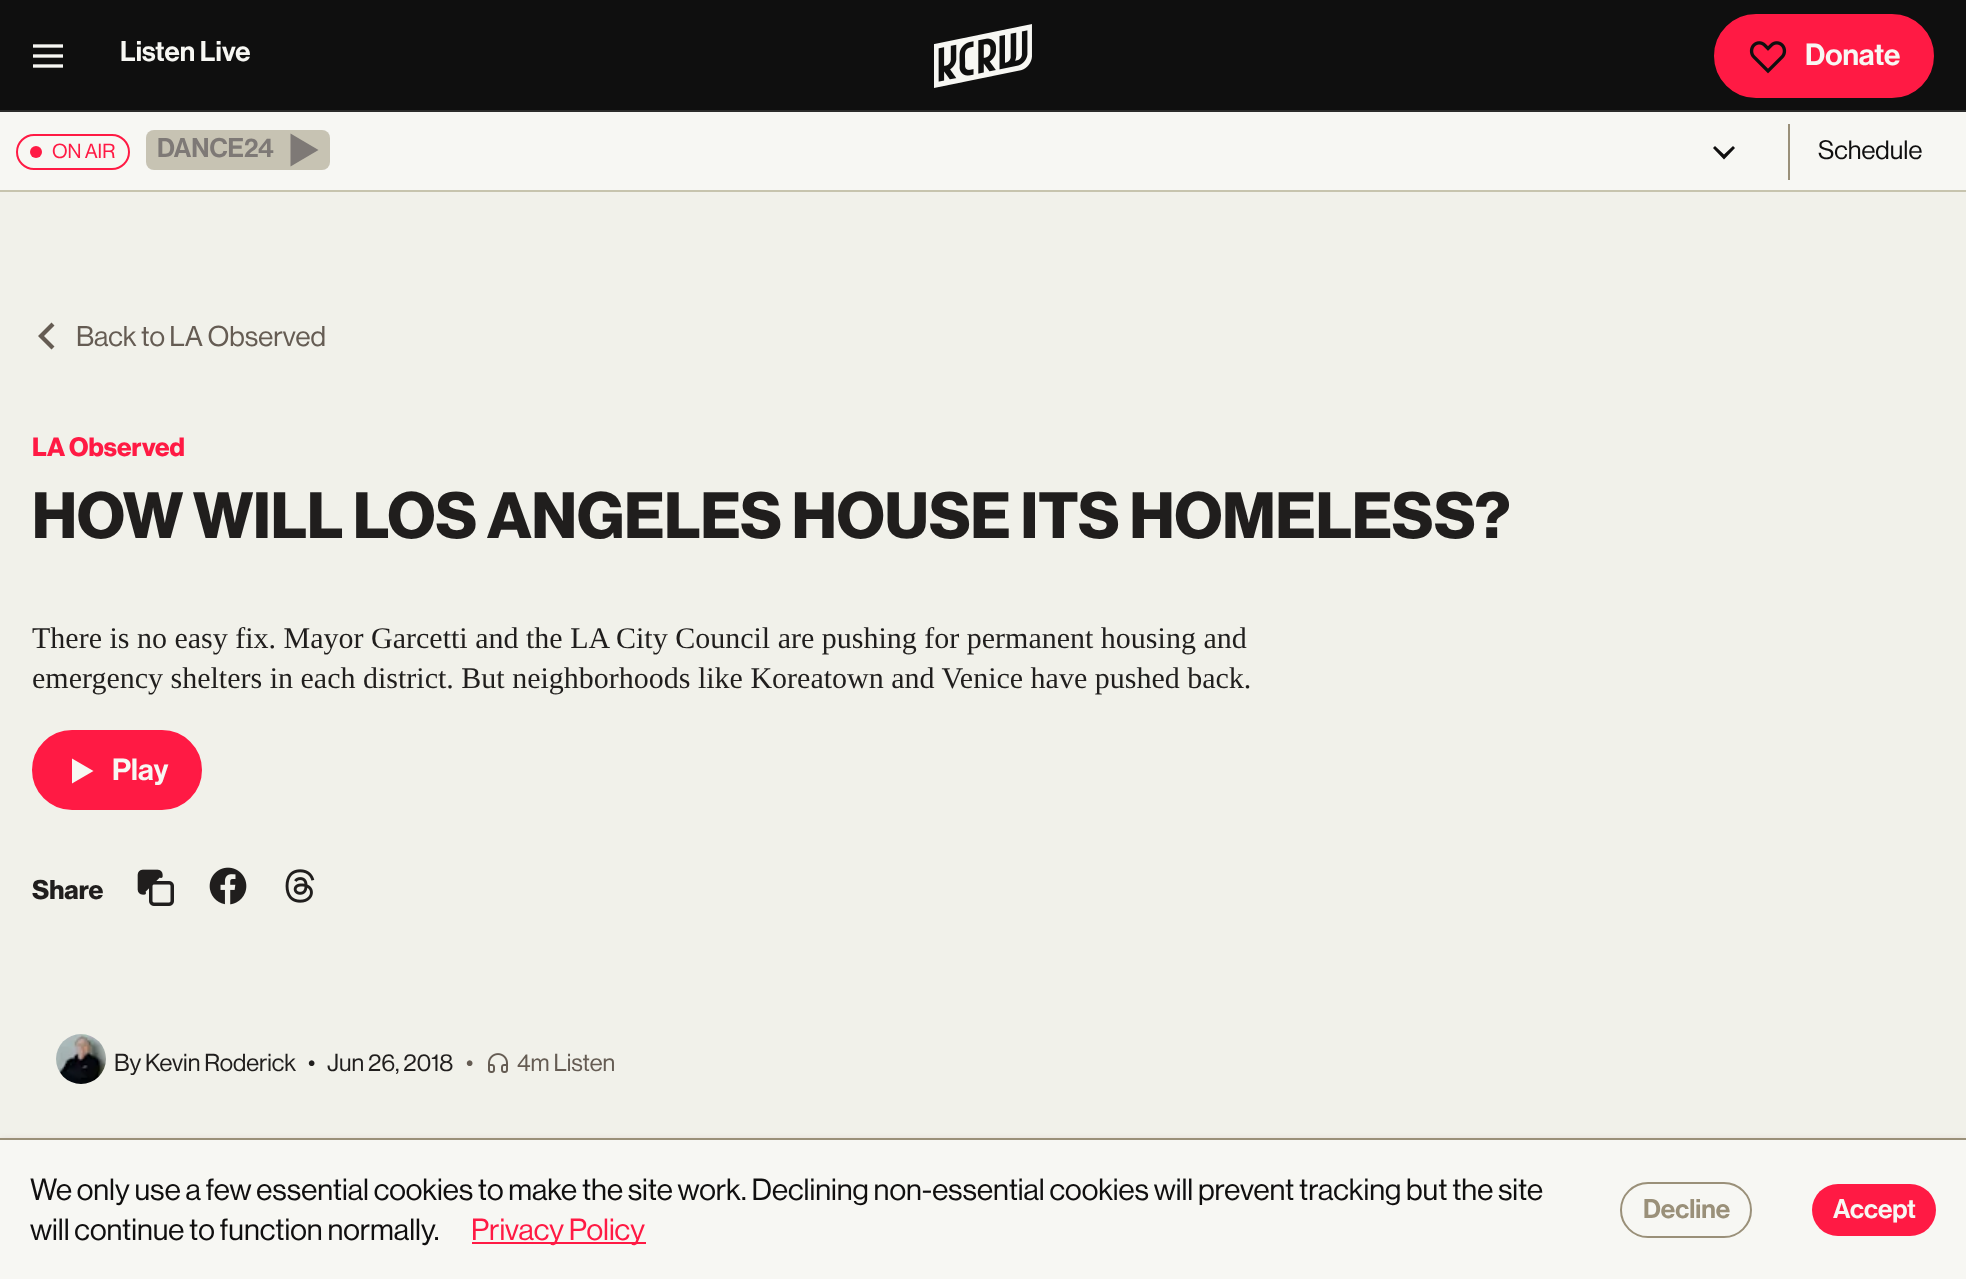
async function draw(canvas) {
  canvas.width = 1966
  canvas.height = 1279
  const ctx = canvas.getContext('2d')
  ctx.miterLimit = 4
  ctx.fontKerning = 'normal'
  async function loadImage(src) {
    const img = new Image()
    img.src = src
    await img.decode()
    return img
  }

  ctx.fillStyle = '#f1f1ea'
  ctx.fillRect(0, 0, 1966, 1279)
  ctx.fillStyle = '#0f0f0f'
  ctx.fillRect(0, 0, 1966, 110)
  ctx.fillStyle = '#2b2b2a'
  ctx.fillRect(0, 110, 1966, 2)
  ctx.drawImage(await loadImage('image0.png'), 33, 44, 30, 24)
  ctx.font = '500 28px "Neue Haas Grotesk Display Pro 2"'
  ctx.fillStyle = '#f7f7f3'
  ctx.fillText('Listen Live', 120, 61)
  ctx.drawImage(await loadImage('image1.png'), 934, 24, 98, 64)
  ctx.fillStyle = '#ff1a44'
  ctx.beginPath()
  ctx.roundRect(1715, 15, 218, 82, 41)
  ctx.fill()
  ctx.strokeStyle = '#ff1a44'
  ctx.lineWidth = 2
  ctx.stroke()
  ctx.drawImage(await loadImage('image2.png'), 1749, 41, 38, 33)
  ctx.font = '500 30px "Neue Haas Grotesk Display Pro 2"'
  ctx.fillStyle = '#f7f7f3'
  ctx.fillText('Donate', 1805, 65)
  ctx.fillRect(0, 112, 1966, 78)
  ctx.fillStyle = '#c7c4ae'
  ctx.fillRect(0, 190, 1966, 2)
  ctx.beginPath()
  ctx.roundRect(17, 135, 112, 34, 17)
  ctx.stroke()
  ctx.fillStyle = '#ff1a44'
  ctx.beginPath()
  ctx.arc(36, 152, 6, 0, 2 * Math.PI)
  ctx.fill()
  ctx.font = '500 20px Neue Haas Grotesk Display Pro'
  ctx.fillText('ON AIR', 52, 158)
  ctx.fillStyle = '#efefef'
  ctx.beginPath()
  ctx.roundRect(146, 130, 184, 40, 8)
  ctx.fill()
  ctx.fillStyle = '#b6b19ab3'
  ctx.beginPath()
  ctx.roundRect(146, 130, 184, 40, 8)
  ctx.fill()
  ctx.font = '500 26.5px "Neue Haas Grotesk Display Pro 2"'
  ctx.fillStyle = '#7e7976'
  ctx.fillText('DANCE24', 157, 157)
  ctx.beginPath()
  ctx.moveTo(290.5, 133.5)
  ctx.lineTo(290.5, 166.5)
  ctx.lineTo(318.5, 150)
  ctx.closePath()
  ctx.fill()
  ctx.fillStyle = '#100f0f'
  ctx.beginPath()
  ctx.moveTo(1713, 148)
  ctx.lineTo(1715, 146)
  ctx.lineTo(1724, 154.5)
  ctx.lineTo(1733, 146)
  ctx.lineTo(1735, 148)
  ctx.lineTo(1724, 159.5)
  ctx.closePath()
  ctx.fill('evenodd')
  ctx.fillStyle = '#9a9079'
  ctx.fillRect(1788, 124, 2, 56)
  ctx.font = '500 26px Neue Haas Grotesk Display Pro'
  ctx.fillStyle = '#100f0f'
  ctx.fillText('Schedule', 1818, 159)
  ctx.fillStyle = '#655c53'
  ctx.beginPath()
  ctx.moveTo(51.5, 322.5)
  ctx.lineTo(54.5, 325.5)
  ctx.lineTo(44, 336)
  ctx.lineTo(54.5, 346.5)
  ctx.lineTo(51.5, 349.5)
  ctx.lineTo(38, 336)
  ctx.closePath()
  ctx.fill('evenodd')
  ctx.font = '500 28px Neue Haas Grotesk Display Pro'
  ctx.fillText('Back to LA Observed', 76, 346)
  ctx.font = 'bold 26px Neue Haas Grotesk Display Pro'
  ctx.fillStyle = '#ff1a44'
  ctx.fillText('LA Observed', 32, 456)
  ctx.font = 'bold 64px Neue Haas Grotesk Display Pro'
  ctx.fillStyle = '#201e1d'
  ctx.fillText('HOW WILL LOS ANGELES HOUSE ITS HOMELESS?', 32, 538)
  ctx.font = '30px Liberation Serif'
  ctx.fillText('There is no easy fix. Mayor Garcetti and the LA City Council are pushing for permanent housing and', 32, 648)
  ctx.fillText('emergency shelters in each district. But neighborhoods like Koreatown and Venice have pushed back.', 32, 688)
  ctx.fillStyle = '#ff1a44'
  ctx.beginPath()
  ctx.roundRect(33, 731, 168, 78, 39)
  ctx.fill()
  ctx.stroke()
  ctx.fillStyle = '#f7f7f3'
  ctx.beginPath()
  ctx.moveTo(72, 758.5)
  ctx.lineTo(72, 783.5)
  ctx.lineTo(93.5, 771)
  ctx.closePath()
  ctx.fill()
  ctx.font = '500 30px "Neue Haas Grotesk Display Pro 2"'
  ctx.fillText('Play', 112, 780)
  ctx.font = 'bold 26.5px Neue Haas Grotesk Display Pro'
  ctx.fillStyle = '#201e1d'
  ctx.fillText('Share', 32, 899)
  ctx.drawImage(await loadImage('image3.png'), 137, 869, 37, 37)
  ctx.drawImage(await loadImage('image4.png'), 209, 867, 38, 38)
  ctx.drawImage(await loadImage('image5.png'), 285, 869, 30, 34)
  ctx.drawImage(await loadImage('image6.png'), 56, 1034, 50, 50)
  ctx.font = '500 24px Neue Haas Grotesk Display Pro'
  ctx.fillText('By Kevin Roderick', 114, 1071)
  ctx.fillText('•', 308, 1071)
  ctx.fillText('Jun 26, 2018', 327, 1071)
  ctx.fillStyle = '#655c53'
  ctx.fillText('•', 466, 1071)
  ctx.drawImage(await loadImage('image7.png'), 488, 1053, 20, 20)
  ctx.fillText('4m Listen', 517, 1071)
  ctx.fillStyle = '#67051140'
  ctx.filter = 'blur(4px)'
  ctx.beginPath()
  ctx.rect(0, 1142, 1966, 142)
  ctx.fill()
  ctx.filter = 'none'
  ctx.fillStyle = '#f7f7f3'
  ctx.fillRect(0, 1140, 1966, 139)
  ctx.fillStyle = '#9a9079'
  ctx.fillRect(0, 1138, 1966, 2)
  ctx.font = '500 30px Neue Haas Grotesk Display Pro'
  ctx.fillStyle = '#100f0f'
  ctx.fillText('We only use a few essential cookies to make the site work. Declining non-essential cookies will prevent tracking but the site', 30, 1200)
  ctx.fillText('will continue to function normally.', 30, 1240)
  ctx.fillStyle = '#ff1a44'
  ctx.fillRect(472, 1242, 174, 2)
  ctx.fillText('Privacy Policy', 471, 1240)
  ctx.beginPath()
  ctx.roundRect(1621, 1183, 130, 54, 27)
  ctx.strokeStyle = '#9a9079'
  ctx.stroke()
  ctx.font = '500 26.5px "Neue Haas Grotesk Display Pro 2"'
  ctx.fillStyle = '#9a9079'
  ctx.fillText('Decline', 1643, 1218)
  ctx.fillStyle = '#ff1a44'
  ctx.beginPath()
  ctx.roundRect(1812, 1184, 124, 52, 26)
  ctx.fill()
  ctx.fillStyle = '#f7f7f3'
  ctx.fillText('Accept', 1833, 1218)
}

draw(document.querySelector('canvas'))
